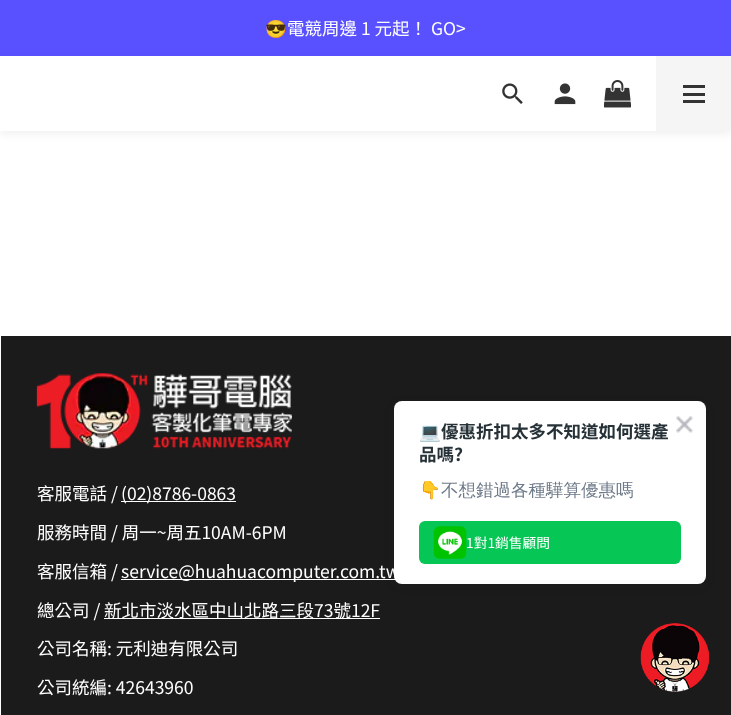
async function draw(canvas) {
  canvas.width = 731
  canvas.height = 715
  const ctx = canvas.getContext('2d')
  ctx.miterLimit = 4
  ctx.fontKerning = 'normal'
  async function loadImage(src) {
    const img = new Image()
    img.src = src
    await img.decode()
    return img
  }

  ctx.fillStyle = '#fff'
  ctx.fillRect(0, 0, 731, 715)
  ctx.fillStyle = '#5951ff'
  ctx.fillRect(0, 0, 731, 56)
  ctx.font = '17.5px Noto Color Emoji'
  ctx.fillStyle = '#fff'
  ctx.fillText('😎', 265, 35)
  ctx.font = '17.5px Noto Sans TC'
  ctx.fillText('電競周邊 1 元起！ GO>', 287, 35)
  ctx.fillStyle = '#0000000f'
  ctx.filter = 'blur(4px)'
  ctx.beginPath()
  ctx.rect(0, 59, 731, 75)
  ctx.fill()
  ctx.filter = 'none'
  ctx.fillStyle = '#fff'
  ctx.fillRect(0, 56, 656, 75)
  ctx.drawImage(await loadImage('image0.png'), 502, 83, 21, 21)
  ctx.drawImage(await loadImage('image1.png'), 554, 83, 22, 22)
  ctx.drawImage(await loadImage('image2.png'), 604, 80, 27, 28)
  ctx.fillStyle = '#f5f5f5'
  ctx.fillRect(656, 56, 75, 75)
  ctx.fillStyle = '#333'
  ctx.fillRect(683, 93, 22, 3)
  ctx.fillRect(683, 85, 22, 3)
  ctx.fillRect(683, 100, 22, 3)
  ctx.fillStyle = '#1b1b1b'
  ctx.fillRect(1, 336, 730, 379)
  ctx.drawImage(await loadImage('image3.png'), 36, 373, 256, 76)
  ctx.fillStyle = '#fff'
  ctx.fillText('客服電話 /', 37, 500)
  ctx.fillRect(121, 501, 115, 1)
  ctx.fillText('(02)8786-0863', 121, 500)
  ctx.fillText('服務時間 / 周一~周五10AM-6PM', 37, 539)
  ctx.fillText('客服信箱 /', 37, 578)
  ctx.fillRect(121, 579, 279, 1)
  ctx.fillText('service@huahuacomputer.com.tw', 121, 578)
  ctx.fillText('總公司 /', 37, 617)
  ctx.fillRect(104, 618, 276, 1)
  ctx.fillText('新北市淡水區中山北路三段73號12F', 104, 617)
  ctx.fillText('公司名稱: 元利迪有限公司', 37, 655)
  ctx.fillText('公司統編: 42643960', 37, 694)
  ctx.fillStyle = '#232f3517'
  ctx.filter = 'blur(5px)'
  ctx.beginPath()
  ctx.roundRect(394, 404, 312, 182, 8)
  ctx.fill()
  ctx.filter = 'none'
  ctx.fillStyle = '#fff'
  ctx.beginPath()
  ctx.roundRect(394, 401, 312, 183, 8)
  ctx.fill()
  ctx.save()
  ctx.beginPath()
  ctx.rect(419, 420, 250, 45)
  ctx.clip()
  ctx.font = 'bold 17.5px Noto Color Emoji'
  ctx.fillStyle = '#263238'
  ctx.fillText('💻', 419, 438)
  ctx.restore()
  ctx.font = 'bold 17.5px Noto Sans TC'
  ctx.fillStyle = '#263238'
  ctx.fillText('優惠折扣太多不知道如何選產', 441, 438)
  ctx.fillText('品嗎?', 419, 461)
  ctx.drawImage(await loadImage('image4.png'), 676, 416, 17, 17)
  ctx.font = '17.5px "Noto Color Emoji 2"'
  ctx.fillStyle = '#6e7a89'
  ctx.fillText('👇', 419, 496)
  ctx.font = '500 17.5px WenQuanYi Zen Hei'
  ctx.fillText('不想錯過各種驊算優惠嗎', 441, 496)
  ctx.fillStyle = '#06c755'
  ctx.beginPath()
  ctx.roundRect(419, 521, 262, 43, 6)
  ctx.fill()
  ctx.drawImage(await loadImage('image5.png'), 433, 526, 34, 33)
  ctx.font = '13.75px Noto Sans TC'
  ctx.fillStyle = '#fff'
  ctx.fillText('1對1銷售顧問', 466, 548)
  ctx.drawImage(await loadImage('image6.png'), 640, 623, 70, 69)
}

draw(document.querySelector('canvas'))
